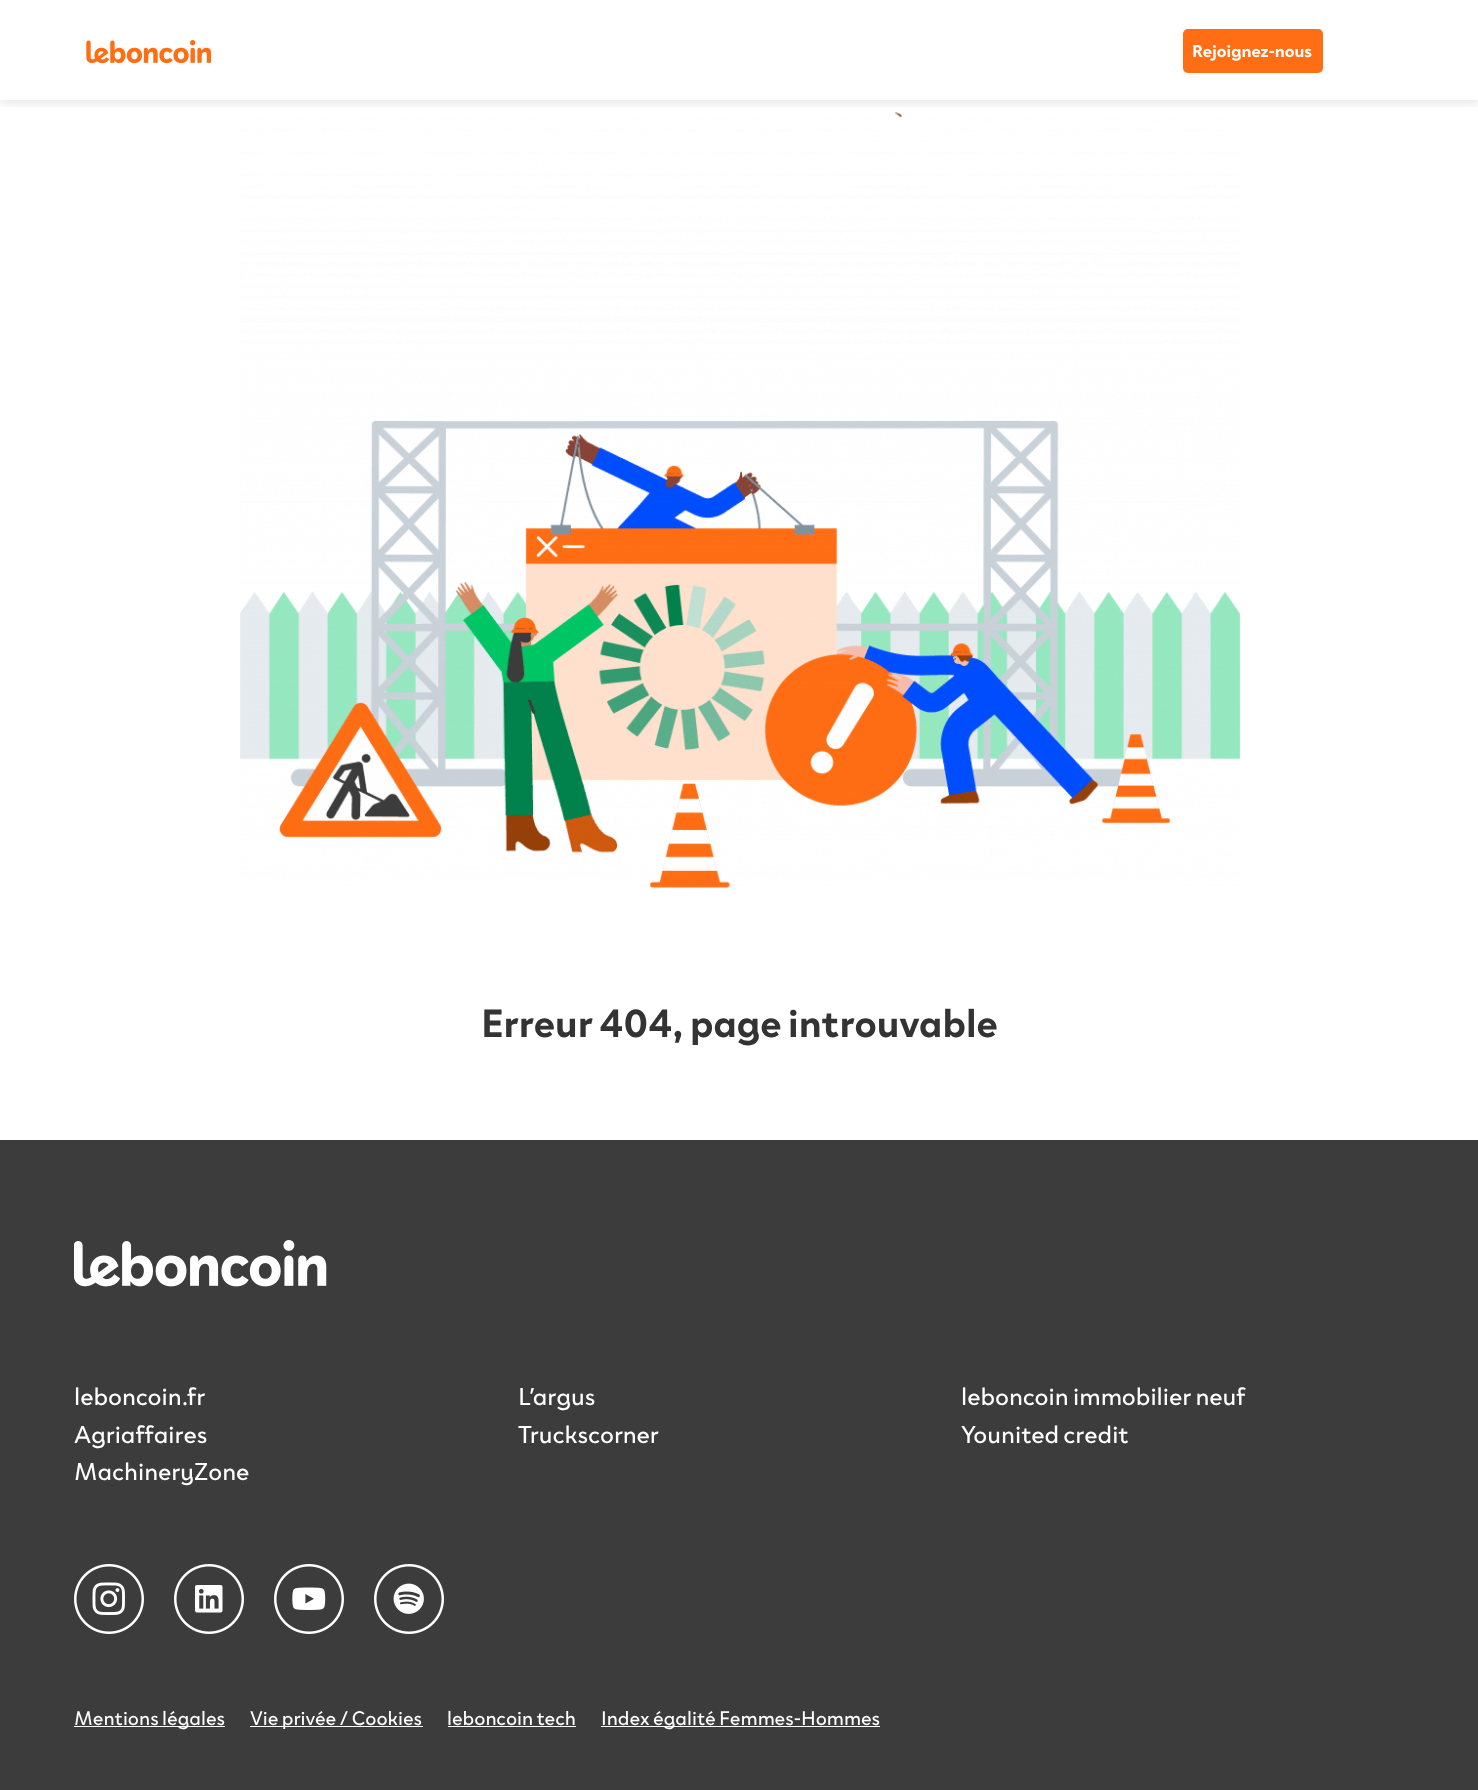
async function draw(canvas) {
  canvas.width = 1478
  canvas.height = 1790
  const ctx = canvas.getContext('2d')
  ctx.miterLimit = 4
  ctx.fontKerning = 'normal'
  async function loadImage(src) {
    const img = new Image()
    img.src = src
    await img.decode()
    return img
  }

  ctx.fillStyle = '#fff'
  ctx.fillRect(0, 0, 1478, 1790)
  ctx.drawImage(await loadImage('image1.png'), 240, 112, 1000, 776)
  ctx.save()
  ctx.beginPath()
  ctx.rect(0, 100, 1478, 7)
  ctx.clip()
  ctx.fillStyle = '#0000001a'
  ctx.filter = 'blur(5px)'
  ctx.beginPath()
  ctx.rect(0, 3, 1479, 100)
  ctx.fill()
  ctx.filter = 'none'
  ctx.restore()
  ctx.drawImage(await loadImage('image0.png'), 86, 40, 125, 23)
  ctx.fillStyle = '#ff6e14'
  ctx.beginPath()
  ctx.roundRect(1183, 29, 140, 44, 5)
  ctx.fill()
  ctx.font = 'bold 17.5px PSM'
  ctx.fillStyle = '#fff'
  ctx.fillText('Rejoignez-nous', 1192, 57)
  ctx.font = 'bold 40px PSM'
  ctx.fillStyle = '#333'
  ctx.fillText('Erreur 404, page introuvable', 481, 1037)
  ctx.fillStyle = '#3c3c3c'
  ctx.fillRect(0, 1140, 1478, 650)
  ctx.drawImage(await loadImage('image2.png'), 74, 1240, 253, 47)
  ctx.font = '25px PSM'
  ctx.fillStyle = '#fff'
  ctx.fillText('leboncoin.fr', 74, 1405)
  ctx.fillText('L’argus', 518, 1405)
  ctx.fillText('leboncoin immobilier neuf', 961, 1405)
  ctx.fillText('Agriaffaires', 74, 1443)
  ctx.fillText('Truckscorner', 518, 1443)
  ctx.fillText('Younited credit', 961, 1443)
  ctx.fillText('MachineryZone', 74, 1480)
  ctx.drawImage(await loadImage('image3.png'), 74, 1564, 70, 70)
  ctx.drawImage(await loadImage('image4.png'), 174, 1564, 70, 70)
  ctx.drawImage(await loadImage('image5.png'), 274, 1564, 70, 70)
  ctx.drawImage(await loadImage('image6.png'), 374, 1564, 70, 70)
  ctx.fillRect(74, 1726, 151, 1)
  ctx.font = '20px PSM'
  ctx.fillText('Mentions légales', 74, 1725)
  ctx.fillRect(250, 1726, 173, 1)
  ctx.fillText('Vie privée / Cookies', 250, 1725)
  ctx.fillText('leboncoin tech', 447, 1725)
  ctx.fillRect(448, 1726, 128, 1)
  ctx.fillRect(601, 1726, 279, 1)
  ctx.fillText('Index égalité Femmes-Hommes', 601, 1725)
}

draw(document.querySelector('canvas'))
